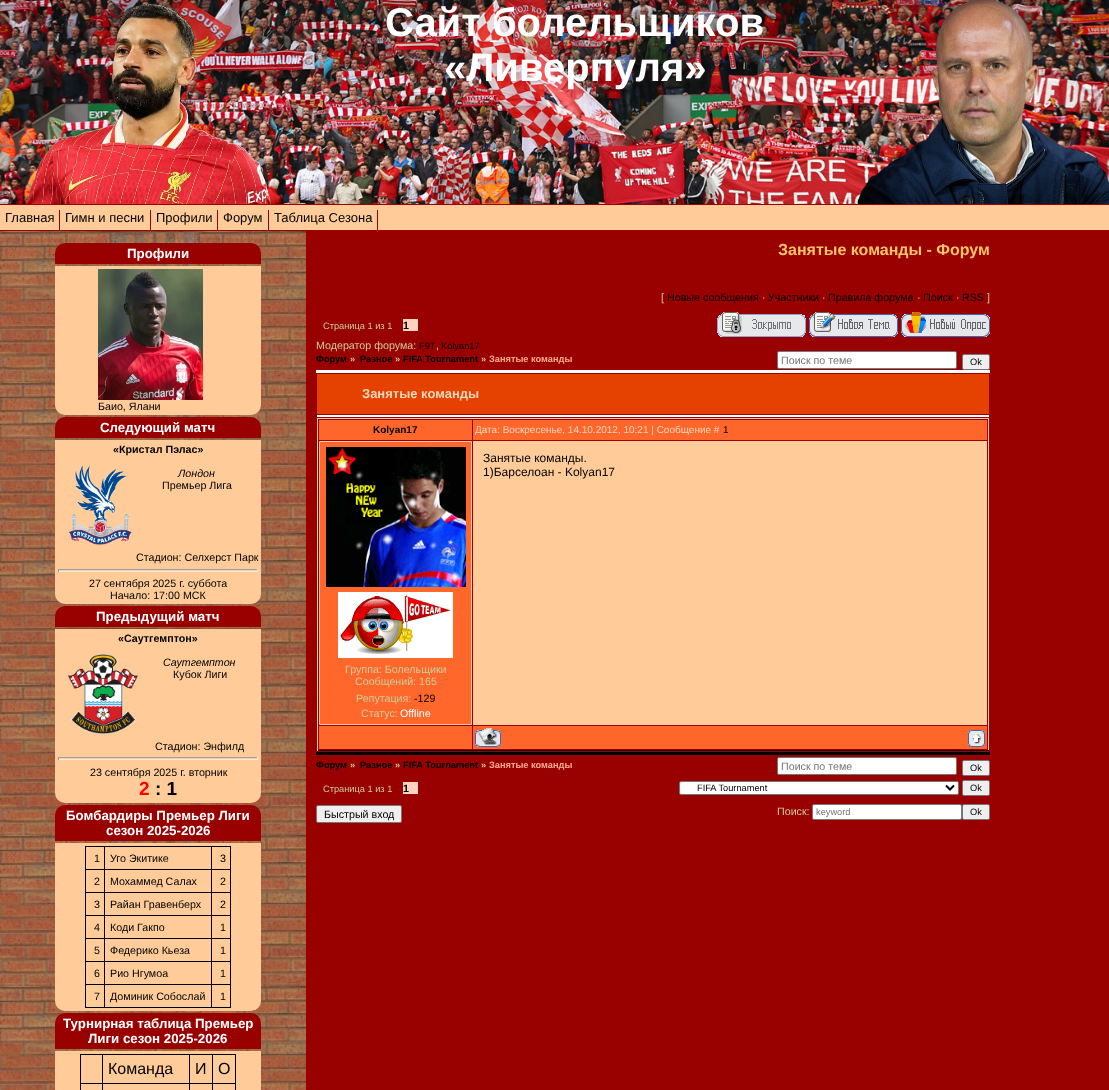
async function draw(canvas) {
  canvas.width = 1109
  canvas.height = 1090
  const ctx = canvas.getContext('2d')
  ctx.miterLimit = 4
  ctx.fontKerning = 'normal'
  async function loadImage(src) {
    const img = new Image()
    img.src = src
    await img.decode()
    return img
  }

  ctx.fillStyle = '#900'
  ctx.fillRect(0, 0, 1109, 1090)
  ctx.drawImage(await loadImage('image0.png'), 0, 0, 1109, 204)
  ctx.drawImage(await loadImage('image1.png'), 25, 4, 246, 200)
  ctx.font = 'bold 40px Liberation Sans'
  ctx.fillStyle = '#fff'
  ctx.fillText('Сайт болельщиков', 385, 36)
  ctx.fillText('«Ливерпуля»', 444, 81)
  ctx.drawImage(await loadImage('image2.png'), 857, 0, 252, 204)
  ctx.fillStyle = '#fc9'
  ctx.fillRect(0, 205, 1109, 25)
  ctx.fillStyle = '#900'
  ctx.fillRect(59, 210, 1, 20)
  ctx.font = '13px Liberation Sans'
  ctx.fillStyle = '#000'
  ctx.fillText('Главная', 5, 222)
  ctx.fillStyle = '#900'
  ctx.fillRect(150, 210, 1, 20)
  ctx.fillStyle = '#000'
  ctx.fillText('Гимн и песни', 65, 222)
  ctx.fillStyle = '#900'
  ctx.fillRect(217, 210, 1, 20)
  ctx.fillStyle = '#000'
  ctx.fillText('Профили', 156, 222)
  ctx.fillStyle = '#900'
  ctx.fillRect(268, 210, 1, 20)
  ctx.fillStyle = '#000'
  ctx.fillText('Форум', 223, 222)
  ctx.fillStyle = '#900'
  ctx.fillRect(377, 210, 1, 20)
  ctx.fillStyle = '#000'
  ctx.fillText('Таблица Сезона', 274, 222)
  ctx.drawImage(await loadImage('image3.png'), 0, 231, 306, 859)
  ctx.fillStyle = '#900'
  ctx.beginPath()
  ctx.roundRect(55, 243, 206, 21, [10, 10, 0, 0])
  ctx.fill()
  ctx.font = 'bold 13.3px Liberation Sans'
  ctx.fillStyle = '#fff'
  ctx.fillText('Профили', 127, 258)
  ctx.fillStyle = '#fc9'
  ctx.beginPath()
  ctx.roundRect(55, 266, 206, 149, [0, 0, 10, 10])
  ctx.fill()
  ctx.drawImage(await loadImage('image4.png'), 98, 269, 105, 131)
  ctx.font = '10.7px Liberation Sans'
  ctx.fillStyle = '#000'
  ctx.fillText('Баио, Ялани', 98, 410)
  ctx.fillStyle = '#900'
  ctx.beginPath()
  ctx.roundRect(55, 417, 206, 21, [10, 10, 0, 0])
  ctx.fill()
  ctx.font = 'bold 13.3px Liberation Sans'
  ctx.fillStyle = '#fff'
  ctx.fillText('Следующий матч', 100, 432)
  ctx.fillStyle = '#fc9'
  ctx.beginPath()
  ctx.roundRect(55, 440, 206, 164, [0, 0, 10, 10])
  ctx.fill()
  ctx.font = 'bold 10.7px Liberation Sans'
  ctx.fillStyle = '#000'
  ctx.fillText('«Кристал Пэлас»', 113, 453)
  ctx.drawImage(await loadImage('image5.png'), 68, 465, 64, 80)
  ctx.font = 'italic 10.7px Liberation Sans'
  ctx.fillText('Лондон', 178, 477)
  ctx.font = '10.7px Liberation Sans'
  ctx.fillText('Премьер Лига', 162, 489)
  ctx.fillText('Стадион: Селхерст Парк', 136, 561)
  ctx.fillStyle = '#9f9f9f'
  ctx.fillRect(58, 569, 200, 1)
  ctx.fillStyle = '#eee'
  ctx.fillRect(257, 569, 1, 3)
  ctx.fillRect(58, 571, 200, 1)
  ctx.fillStyle = '#9f9f9f'
  ctx.fillRect(58, 569, 1, 3)
  ctx.fillStyle = '#000'
  ctx.fillText('27 сентября 2025 г. суббота', 89, 587)
  ctx.fillText('Начало: 17:00 МСК', 110, 599)
  ctx.fillStyle = '#900'
  ctx.beginPath()
  ctx.roundRect(55, 606, 206, 21, [10, 10, 0, 0])
  ctx.fill()
  ctx.font = 'bold 13.3px Liberation Sans'
  ctx.fillStyle = '#fff'
  ctx.fillText('Предыдущий матч', 96, 621)
  ctx.fillStyle = '#fc9'
  ctx.beginPath()
  ctx.roundRect(55, 629, 206, 174, [0, 0, 10, 10])
  ctx.fill()
  ctx.font = 'bold 10.7px Liberation Sans'
  ctx.fillStyle = '#000'
  ctx.fillText('«Саутгемптон»', 118, 642)
  ctx.drawImage(await loadImage('image6.png'), 68, 654, 70, 80)
  ctx.font = 'italic 10.7px Liberation Sans'
  ctx.fillText('Саутгемптон', 163, 666)
  ctx.font = '10.7px Liberation Sans'
  ctx.fillText('Кубок Лиги', 173, 678)
  ctx.fillText('Стадион: Энфилд', 155, 750)
  ctx.fillStyle = '#9f9f9f'
  ctx.fillRect(58, 757, 200, 1)
  ctx.fillStyle = '#eee'
  ctx.fillRect(257, 757, 1, 3)
  ctx.fillRect(58, 759, 200, 1)
  ctx.fillStyle = '#9f9f9f'
  ctx.fillRect(58, 757, 1, 3)
  ctx.fillStyle = '#000'
  ctx.fillText('23 сентября 2025 г. вторник', 90, 776)
  ctx.font = 'bold 19px Liberation Sans'
  ctx.fillStyle = '#f00'
  ctx.fillText('2', 139, 795)
  ctx.fillStyle = '#000'
  ctx.fillText(': 1', 155, 795)
  ctx.fillStyle = '#900'
  ctx.beginPath()
  ctx.roundRect(55, 805, 206, 36, [10, 10, 0, 0])
  ctx.fill()
  ctx.font = 'bold 13.3px Liberation Sans'
  ctx.fillStyle = '#fff'
  ctx.fillText('Бомбардиры Премьер Лиги', 66, 820)
  ctx.fillText('сезон 2025-2026', 106, 835)
  ctx.fillStyle = '#fc9'
  ctx.beginPath()
  ctx.roundRect(55, 843, 206, 168, [0, 0, 10, 10])
  ctx.fill()
  ctx.fillStyle = '#000'
  ctx.fillRect(85, 846, 146, 1)
  ctx.fillRect(230, 846, 1, 162)
  ctx.fillRect(85, 1007, 146, 1)
  ctx.fillRect(85, 846, 1, 162)
  ctx.font = '10.7px Liberation Sans'
  ctx.fillText('1', 94, 862)
  ctx.fillRect(211, 869, 20, 1)
  ctx.fillRect(211, 892, 20, 1)
  ctx.fillRect(211, 915, 20, 1)
  ctx.fillRect(211, 938, 20, 1)
  ctx.fillRect(211, 961, 20, 1)
  ctx.fillRect(211, 984, 20, 1)
  ctx.fillRect(211, 984, 1, 24)
  ctx.fillRect(104, 984, 108, 1)
  ctx.fillRect(211, 961, 1, 24)
  ctx.fillRect(104, 961, 108, 1)
  ctx.fillRect(211, 938, 1, 24)
  ctx.fillRect(104, 938, 108, 1)
  ctx.fillRect(211, 915, 1, 24)
  ctx.fillRect(104, 915, 108, 1)
  ctx.fillRect(211, 892, 1, 24)
  ctx.fillRect(104, 892, 108, 1)
  ctx.fillRect(211, 869, 1, 24)
  ctx.fillRect(104, 869, 108, 1)
  ctx.fillRect(104, 984, 1, 24)
  ctx.fillRect(85, 984, 20, 1)
  ctx.fillRect(104, 961, 1, 24)
  ctx.fillRect(85, 961, 20, 1)
  ctx.fillRect(104, 938, 1, 24)
  ctx.fillRect(85, 938, 20, 1)
  ctx.fillRect(104, 915, 1, 24)
  ctx.fillRect(85, 915, 20, 1)
  ctx.fillRect(104, 892, 1, 24)
  ctx.fillRect(85, 892, 20, 1)
  ctx.fillRect(104, 869, 1, 24)
  ctx.fillRect(85, 869, 20, 1)
  ctx.fillRect(104, 846, 1, 24)
  ctx.fillText('Уго Экитике', 110, 862)
  ctx.fillRect(211, 846, 1, 24)
  ctx.fillText('3', 220, 862)
  ctx.fillText('2', 94, 885)
  ctx.fillText('Мохаммед Салах', 110, 885)
  ctx.fillText('2', 220, 885)
  ctx.fillText('3', 94, 908)
  ctx.fillText('Райан Гравенберх', 110, 908)
  ctx.fillText('2', 220, 908)
  ctx.fillText('4', 94, 931)
  ctx.fillText('Коди Гакпо', 110, 931)
  ctx.fillText('1', 220, 931)
  ctx.fillText('5', 94, 954)
  ctx.fillText('Федерико Кьеза', 110, 954)
  ctx.fillText('1', 220, 954)
  ctx.fillText('6', 94, 977)
  ctx.fillText('Рио Нгумоа', 110, 977)
  ctx.fillText('1', 220, 977)
  ctx.fillText('7', 94, 1000)
  ctx.fillText('Доминик Собослай', 110, 1000)
  ctx.fillText('1', 220, 1000)
  ctx.fillStyle = '#900'
  ctx.beginPath()
  ctx.roundRect(55, 1013, 206, 36, [10, 10, 0, 0])
  ctx.fill()
  ctx.font = 'bold 13.3px Liberation Sans'
  ctx.fillStyle = '#fff'
  ctx.fillText('Турнирная таблица Премьер', 63, 1028)
  ctx.fillText('Лиги сезон 2025-2026', 88, 1043)
  ctx.fillStyle = '#fc9'
  ctx.fillRect(55, 1051, 206, 39)
  ctx.fillStyle = '#000'
  ctx.fillRect(212, 1054, 24, 1)
  ctx.fillRect(212, 1083, 24, 1)
  ctx.fillRect(212, 1083, 1, 7)
  ctx.fillRect(189, 1083, 24, 1)
  ctx.fillRect(212, 1054, 1, 30)
  ctx.fillRect(189, 1054, 24, 1)
  ctx.fillRect(189, 1083, 1, 7)
  ctx.fillRect(102, 1083, 88, 1)
  ctx.fillRect(189, 1054, 1, 30)
  ctx.fillRect(102, 1054, 88, 1)
  ctx.fillRect(102, 1083, 1, 7)
  ctx.fillRect(80, 1083, 23, 1)
  ctx.fillRect(102, 1054, 1, 30)
  ctx.fillRect(80, 1054, 23, 1)
  ctx.fillRect(80, 1083, 1, 7)
  ctx.fillRect(80, 1054, 1, 30)
  ctx.font = '16px Liberation Sans'
  ctx.fillText('Команда', 108, 1074)
  ctx.fillText('И', 195, 1074)
  ctx.fillRect(235, 1083, 1, 7)
  ctx.fillRect(235, 1054, 1, 30)
  ctx.fillText('О', 218, 1074)
  ctx.font = 'bold 16px Liberation Sans'
  ctx.fillStyle = '#ffc565'
  ctx.fillText('Занятые команды - Форум', 778, 255)
  ctx.font = '10.7px Liberation Sans'
  ctx.fillStyle = '#cc9'
  ctx.fillText('[', 661, 301)
  ctx.fillStyle = '#000'
  ctx.fillText('Новые сообщения', 667, 301)
  ctx.fillStyle = '#cc9'
  ctx.fillText('·', 762, 301)
  ctx.fillStyle = '#000'
  ctx.fillText('Участники', 768, 301)
  ctx.fillStyle = '#cc9'
  ctx.fillText('·', 822, 301)
  ctx.fillStyle = '#000'
  ctx.fillText('Правила форума', 828, 301)
  ctx.fillStyle = '#cc9'
  ctx.fillText('·', 917, 301)
  ctx.fillStyle = '#000'
  ctx.fillText('Поиск', 923, 301)
  ctx.fillStyle = '#cc9'
  ctx.fillText('·', 956, 301)
  ctx.fillStyle = '#000'
  ctx.fillText('RSS', 962, 301)
  ctx.fillStyle = '#cc9'
  ctx.fillText(']', 987, 301)
  ctx.font = '9.25px Liberation Sans'
  ctx.fillText('Страница 1 из 1', 323, 329)
  ctx.fillStyle = '#ffd3c0'
  ctx.fillRect(403, 319, 15, 12)
  ctx.font = 'bold 10.7px Liberation Sans'
  ctx.fillStyle = '#000'
  ctx.fillText('1', 403, 329)
  ctx.drawImage(await loadImage('image7.png'), 717, 312, 89, 25)
  ctx.drawImage(await loadImage('image8.png'), 809, 312, 89, 25)
  ctx.drawImage(await loadImage('image9.png'), 901, 312, 89, 25)
  ctx.font = '10.7px Liberation Sans'
  ctx.fillStyle = '#cc9'
  ctx.fillText('Модератор форума:', 316, 349)
  ctx.font = '9.25px Liberation Sans'
  ctx.fillStyle = '#000'
  ctx.fillText('F9T', 419, 349)
  ctx.font = '10.7px Liberation Sans'
  ctx.fillStyle = '#cc9'
  ctx.fillText(',', 436, 349)
  ctx.font = '9.25px Liberation Sans'
  ctx.fillStyle = '#000'
  ctx.fillText('Kolyan17', 441, 349)
  ctx.font = 'bold 9.25px Liberation Sans'
  ctx.fillText('Форум', 316, 362)
  ctx.fillStyle = '#cc9'
  ctx.fillText('»', 350, 362)
  ctx.fillStyle = '#000'
  ctx.fillText('Разное', 360, 362)
  ctx.fillStyle = '#cc9'
  ctx.fillText('»', 395, 362)
  ctx.fillStyle = '#000'
  ctx.fillText('FIFA Tournament', 403, 362)
  ctx.fillStyle = '#cc9'
  ctx.fillText('»', 481, 362)
  ctx.fillStyle = '#ffac8b'
  ctx.fillText('Занятые команды', 489, 362)
  ctx.fillStyle = '#fff'
  ctx.beginPath()
  ctx.roundRect(777.5, 351.5, 179, 17, 1.5)
  ctx.fill()
  ctx.strokeStyle = '#767676'
  ctx.stroke()
  ctx.font = '10.7px Liberation Sans'
  ctx.fillStyle = '#757575'
  ctx.fillText('Поиск по теме', 781, 364)
  ctx.fillStyle = '#efefef'
  ctx.beginPath()
  ctx.roundRect(962.5, 354.5, 27, 15, 1.5)
  ctx.fill()
  ctx.stroke()
  ctx.font = '9.25px Liberation Sans'
  ctx.fillStyle = '#000'
  ctx.fillText('Ok', 970, 365)
  ctx.fillStyle = '#fff'
  ctx.fillRect(316, 370, 674, 3)
  ctx.fillStyle = '#000'
  ctx.fillRect(316, 752, 674, 3)
  ctx.fillStyle = '#e54201'
  ctx.fillRect(317, 374, 672, 40)
  ctx.font = 'bold 13px Liberation Sans'
  ctx.fillStyle = '#f3d9bb'
  ctx.fillText('Занятые команды', 362, 398)
  ctx.fillStyle = '#fff'
  ctx.fillRect(317, 415, 672, 2)
  ctx.fillStyle = '#ffc6b0'
  ctx.fillRect(317, 418, 672, 1)
  ctx.fillRect(988, 418, 1, 333)
  ctx.fillStyle = '#000'
  ctx.fillRect(317, 750, 672, 1)
  ctx.fillStyle = '#ffc6b0'
  ctx.fillRect(317, 418, 1, 333)
  ctx.fillStyle = '#ff672a'
  ctx.fillRect(319, 420, 153, 20)
  ctx.font = 'bold 10px Liberation Sans'
  ctx.fillStyle = '#000'
  ctx.fillText('Kolyan17', 373, 433)
  ctx.fillStyle = '#ff672a'
  ctx.fillRect(473, 420, 514, 20)
  ctx.font = '10px Liberation Sans'
  ctx.fillStyle = '#ffd3c0'
  ctx.fillText('Дата: Воскресенье, 14.10.2012, 10:21 | Сообщение #', 475, 433)
  ctx.fillStyle = '#000'
  ctx.fillText('1', 723, 433)
  ctx.fillStyle = '#fc9'
  ctx.fillRect(473, 441, 514, 284)
  ctx.font = '12px Liberation Sans'
  ctx.fillStyle = '#000'
  ctx.fillText('Занятые команды.', 483, 462)
  ctx.fillText('1)Барселоан - Kolyan17', 483, 476)
  ctx.fillStyle = '#ff672b'
  ctx.beginPath()
  ctx.rect(319.5, 441.5, 152, 283)
  ctx.fill()
  ctx.strokeStyle = '#ffc6b0'
  ctx.stroke()
  ctx.drawImage(await loadImage('image10.png'), 326, 447, 140, 140)
  ctx.drawImage(await loadImage('image11.png'), 338, 592, 115, 66)
  ctx.font = '10.7px Liberation Sans'
  ctx.fillStyle = '#cc9'
  ctx.fillText('Группа: Болельщики', 345, 673)
  ctx.fillText('Сообщений: 165', 355, 685)
  ctx.fillText('Репутация:', 356, 702)
  ctx.fillStyle = '#000'
  ctx.fillText('-129', 414, 702)
  ctx.fillStyle = '#cc9'
  ctx.fillText('Статус:', 361, 717)
  ctx.fillStyle = '#fff'
  ctx.fillText('Offline', 400, 717)
  ctx.fillStyle = '#ff672a'
  ctx.fillRect(319, 726, 153, 23)
  ctx.fillRect(473, 726, 514, 23)
  ctx.drawImage(await loadImage('image12.png'), 475, 728, 26, 19)
  ctx.drawImage(await loadImage('image13.png'), 968, 730, 17, 17)
  ctx.font = 'bold 9.25px Liberation Sans'
  ctx.fillStyle = '#000'
  ctx.fillText('Форум', 316, 768)
  ctx.fillStyle = '#cc9'
  ctx.fillText('»', 350, 768)
  ctx.fillStyle = '#000'
  ctx.fillText('Разное', 360, 768)
  ctx.fillStyle = '#cc9'
  ctx.fillText('»', 395, 768)
  ctx.fillStyle = '#000'
  ctx.fillText('FIFA Tournament', 403, 768)
  ctx.fillStyle = '#cc9'
  ctx.fillText('»', 481, 768)
  ctx.fillStyle = '#ffac8b'
  ctx.fillText('Занятые команды', 489, 768)
  ctx.fillStyle = '#fff'
  ctx.beginPath()
  ctx.roundRect(777.5, 757.5, 179, 17, 1.5)
  ctx.fill()
  ctx.strokeStyle = '#767676'
  ctx.stroke()
  ctx.font = '10.7px Liberation Sans'
  ctx.fillStyle = '#757575'
  ctx.fillText('Поиск по теме', 781, 770)
  ctx.fillStyle = '#efefef'
  ctx.beginPath()
  ctx.roundRect(962.5, 760.5, 27, 15, 1.5)
  ctx.fill()
  ctx.stroke()
  ctx.font = '9.25px Liberation Sans'
  ctx.fillStyle = '#000'
  ctx.fillText('Ok', 970, 771)
  ctx.fillStyle = '#cc9'
  ctx.fillText('Страница 1 из 1', 323, 792)
  ctx.fillStyle = '#ffd3c0'
  ctx.fillRect(403, 782, 15, 12)
  ctx.font = 'bold 10.7px Liberation Sans'
  ctx.fillStyle = '#000'
  ctx.fillText('1', 403, 792)
  ctx.fillStyle = '#fff'
  ctx.beginPath()
  ctx.roundRect(679.5, 781.5, 279, 13, 1.5)
  ctx.fill()
  ctx.stroke()
  ctx.beginPath()
  ctx.moveTo(946, 785.5)
  ctx.lineTo(950, 789.5)
  ctx.lineTo(954, 785.5)
  ctx.strokeStyle = '#000'
  ctx.lineWidth = 2
  ctx.stroke()
  ctx.font = '9.25px Liberation Sans'
  ctx.fillStyle = '#000'
  ctx.fillText('FIFA Tournament', 697, 791)
  ctx.fillStyle = '#efefef'
  ctx.beginPath()
  ctx.roundRect(962.5, 780.5, 27, 15, 1.5)
  ctx.fill()
  ctx.strokeStyle = '#767676'
  ctx.lineWidth = 1
  ctx.stroke()
  ctx.fillStyle = '#000'
  ctx.fillText('Ok', 970, 791)
  ctx.fillStyle = '#efefef'
  ctx.beginPath()
  ctx.roundRect(316.5, 805.5, 85, 17, 1.5)
  ctx.fill()
  ctx.stroke()
  ctx.font = '10.7px Liberation Sans'
  ctx.fillStyle = '#000'
  ctx.fillText('Быстрый вход', 324, 818)
  ctx.fillStyle = '#cc9'
  ctx.fillText('Поиск:', 777, 815)
  ctx.fillStyle = '#fff'
  ctx.beginPath()
  ctx.roundRect(812.5, 804.5, 149, 15, 1.5)
  ctx.fill()
  ctx.stroke()
  ctx.font = '9.25px Liberation Sans'
  ctx.fillStyle = '#757575'
  ctx.fillText('keyword', 816, 815)
  ctx.fillStyle = '#efefef'
  ctx.beginPath()
  ctx.roundRect(962.5, 804.5, 27, 15, 1.5)
  ctx.fill()
  ctx.stroke()
  ctx.fillStyle = '#000'
  ctx.fillText('Ok', 970, 815)
}

draw(document.querySelector('canvas'))
